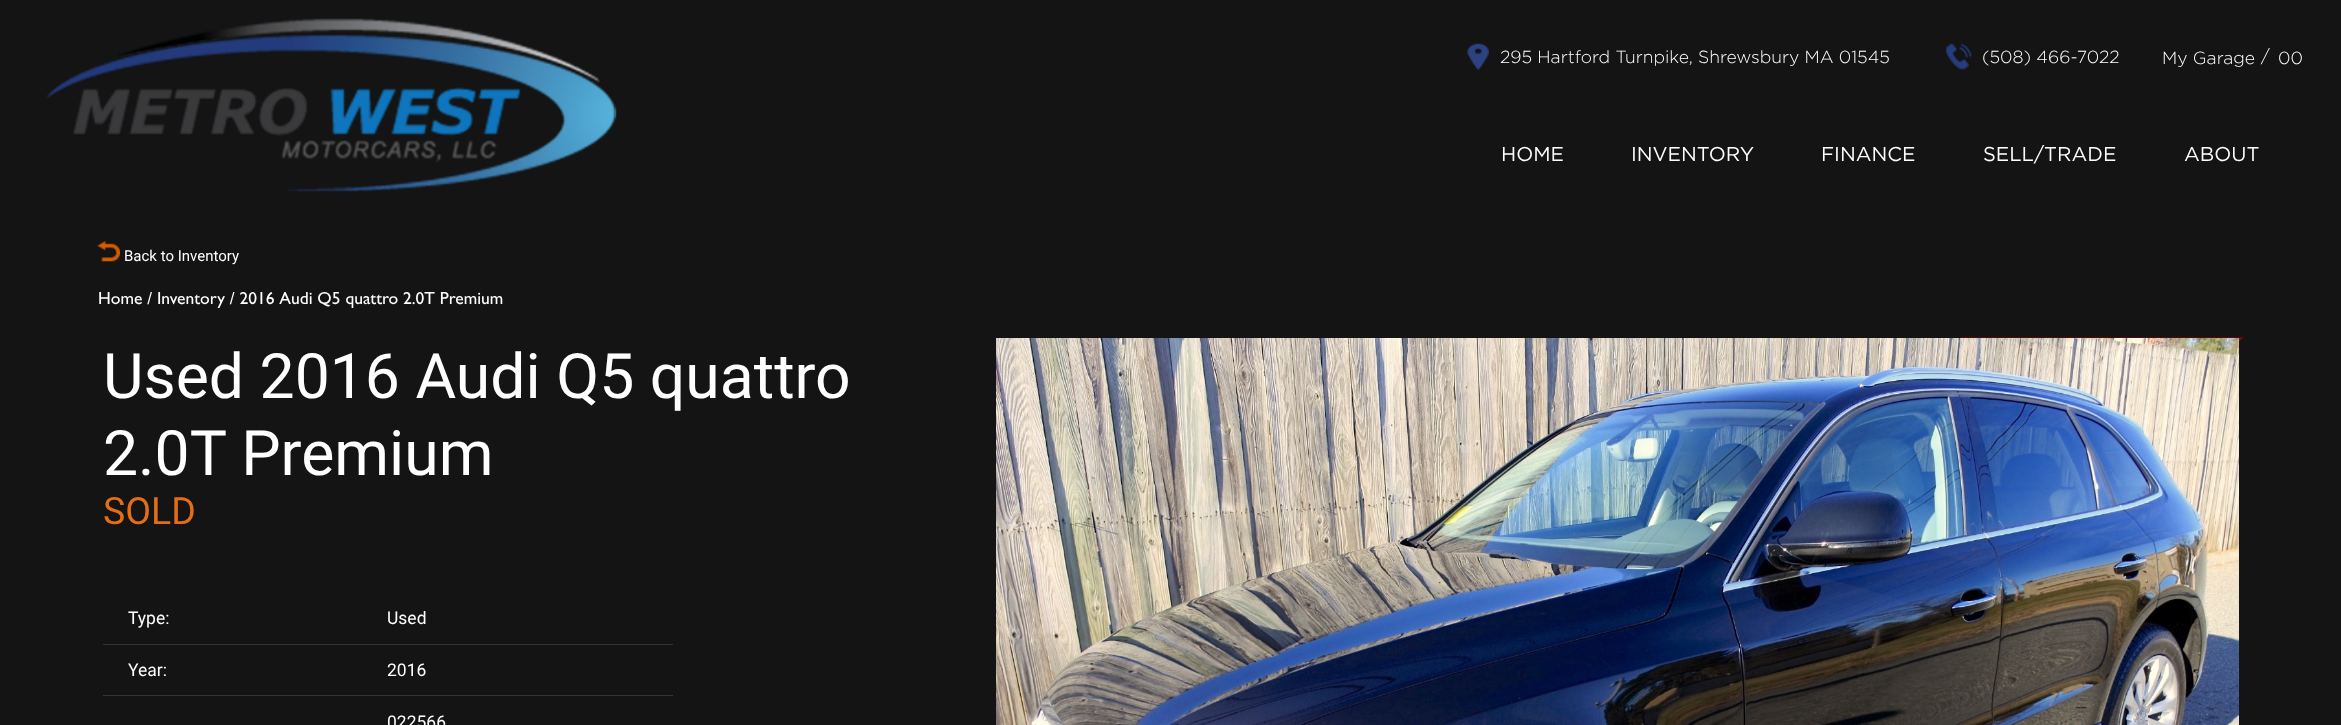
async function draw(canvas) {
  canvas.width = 2341
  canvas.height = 725
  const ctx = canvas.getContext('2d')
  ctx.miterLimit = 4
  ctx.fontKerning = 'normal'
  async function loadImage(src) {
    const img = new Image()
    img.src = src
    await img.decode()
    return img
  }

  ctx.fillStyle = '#141414'
  ctx.fillRect(0, 0, 2341, 725)
  ctx.drawImage(await loadImage('image0.png'), 46, 18, 571, 174)
  ctx.drawImage(await loadImage('image1.png'), 1467, 43, 22, 27)
  ctx.font = '300 17.5px Gotham'
  ctx.fillStyle = '#fff'
  ctx.fillText('295 Hartford Turnpike, Shrewsbury MA 01545', 1500, 63)
  ctx.drawImage(await loadImage('image2.png'), 1946, 43, 26, 27)
  ctx.fillText('(508) 466-7022', 1982, 63)
  ctx.fillText('My Garage', 2162, 64)
  ctx.fillText('/', 2261, 62)
  ctx.fillText('00', 2278, 64)
  ctx.font = '20px Gotham'
  ctx.fillText('HOME', 1501, 161)
  ctx.fillText('INVENTORY', 1631, 161)
  ctx.fillText('FINANCE', 1821, 161)
  ctx.fillText('SELL/TRADE', 1983, 161)
  ctx.fillText('ABOUT', 2184, 161)
  ctx.drawImage(await loadImage('image3.png'), 97, 241, 23, 21)
  ctx.font = '15px Roboto'
  ctx.fillText('Back to Inventory', 124, 261)
  ctx.font = '17.5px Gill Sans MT'
  ctx.fillText('Home / Inventory / 2016 Audi Q5 quattro 2.0T Premium', 98, 304)
  ctx.font = '62.5px Roboto'
  ctx.fillText('Used 2016 Audi Q5 quattro', 103, 398)
  ctx.fillText('2.0T Premium', 103, 475)
  ctx.font = '37.5px Roboto'
  ctx.fillStyle = '#e36e14'
  ctx.fillText('SOLD', 103, 524)
  ctx.fillStyle = '#363636'
  ctx.fillRect(103, 644, 570, 1)
  ctx.font = '17.5px Roboto'
  ctx.fillStyle = '#fff'
  ctx.fillText('Type:', 128, 624)
  ctx.fillText('Used', 387, 624)
  ctx.fillStyle = '#363636'
  ctx.fillRect(103, 695, 570, 1)
  ctx.fillStyle = '#fff'
  ctx.fillText('Year:', 128, 676)
  ctx.fillText('2016', 387, 676)
  ctx.fillText('022566', 387, 728)
  ctx.drawImage(await loadImage('image4.png'), 1959, 337, 284, 5)
  ctx.drawImage(await loadImage('image5.png'), 996, 338, 1243, 387)
}

draw(document.querySelector('canvas'))
